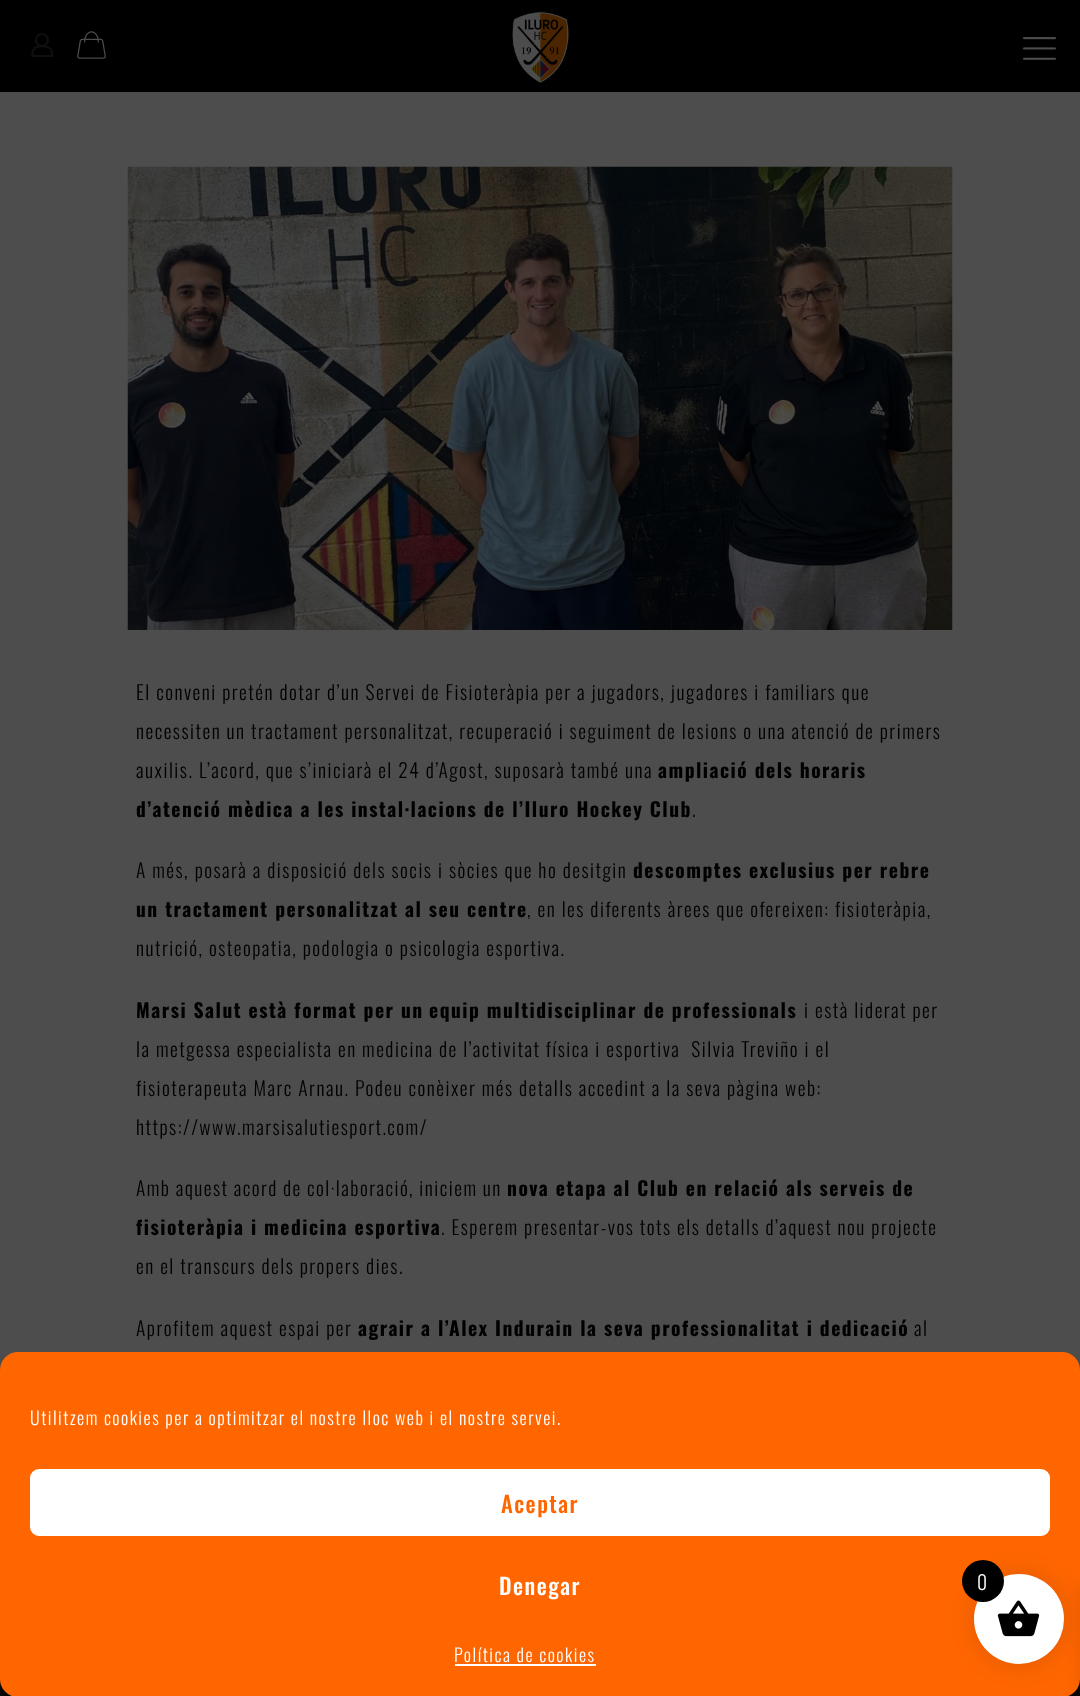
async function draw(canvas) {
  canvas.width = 1080
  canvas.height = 1696
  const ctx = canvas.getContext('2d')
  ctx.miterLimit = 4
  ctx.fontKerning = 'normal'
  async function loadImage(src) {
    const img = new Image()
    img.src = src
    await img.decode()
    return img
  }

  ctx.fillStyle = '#000'
  ctx.fillRect(0, 0, 1080, 1696)
  ctx.beginPath()
  ctx.arc(42, 40, 6, 0, 2 * Math.PI)
  ctx.strokeStyle = '#0f0f0f'
  ctx.lineWidth = 2.2
  ctx.stroke()
  ctx.beginPath()
  ctx.moveTo(52, 52.5)
  ctx.lineTo(52, 56)
  ctx.lineTo(32.5, 56)
  ctx.lineTo(32.5, 51.5)
  ctx.bezierCurveTo(34.5, 44, 52, 44.5, 52, 52.5)
  ctx.closePath()
  ctx.stroke()
  ctx.drawImage(await loadImage('image0.png'), 77, 31, 29, 28)
  ctx.drawImage(await loadImage('image1.png'), 511, 11, 59, 73)
  ctx.drawImage(await loadImage('image2.png'), 1023, 37, 33, 23)
  ctx.fillStyle = '#4d4d4d'
  ctx.fillRect(0, 92, 1080, 1278)
  ctx.drawImage(await loadImage('image3.png'), 127, 166, 826, 464)
  ctx.letterSpacing = '1.5px'
  ctx.font = '300 19.5px Oswald'
  ctx.fillStyle = '#000'
  ctx.fillText('El conveni pretén dotar d’un Servei de Fisioteràpia per a jugadors, jugadores i familiars que', 136, 700)
  ctx.fillText('necessiten un tractament personalitzat, recuperació i seguiment de lesions o una atenció de primers', 136, 739)
  ctx.fillText('auxilis. L’acord, que s’iniciarà el 24 d’Agost, suposarà també una', 136, 778)
  ctx.font = 'bold 19.5px Oswald'
  ctx.fillText('ampliació dels horaris', 658, 778)
  ctx.fillText('d’atenció mèdica a les instal·lacions de l’Iluro Hockey Club', 136, 817)
  ctx.font = '300 19.5px Oswald'
  ctx.fillText('.', 692, 817)
  ctx.fillText('A més, posarà a disposició dels socis i sòcies que ho desitgin', 136, 878)
  ctx.font = 'bold 19.5px Oswald'
  ctx.fillText('descomptes exclusius per rebre', 633, 878)
  ctx.fillText('un tractament personalitzat al seu centre', 136, 917)
  ctx.font = '300 19.5px Oswald'
  ctx.fillText(', en les diferents àrees que ofereixen: fisioteràpia,', 527, 917)
  ctx.fillText('nutrició, osteopatia, podologia o psicologia esportiva.', 136, 956)
  ctx.font = 'bold 19.5px Oswald'
  ctx.fillText('Marsi Salut està format per un', 136, 1018)
  ctx.fillText('equip multidisciplinar de professionals', 429, 1018)
  ctx.font = '300 19.5px Oswald'
  ctx.fillText('i està liderat per', 804, 1018)
  ctx.fillText('la metgessa especialista en medicina de l’activitat física i esportiva  Silvia Treviño i el', 136, 1057)
  ctx.fillText('fisioterapeuta Marc Arnau. Podeu conèixer més detalls accedint a la seva pàgina web:', 136, 1096)
  ctx.fillText('https://www.marsisalutiesport.com/', 136, 1135)
  ctx.wordSpacing = '-0.25px'
  ctx.fillText('Amb aquest acord de col·laboració, iniciem un', 136, 1196)
  ctx.wordSpacing = '0px'
  ctx.font = 'bold 19.5px Oswald'
  ctx.fillText('nova etapa al Club en relació als serveis de', 507, 1196)
  ctx.fillText('fisioteràpia i medicina esportiva', 136, 1235)
  ctx.font = '300 19.5px Oswald'
  ctx.fillText('. Esperem presentar-vos tots els detalls d’aquest nou projecte', 441, 1235)
  ctx.fillText('en el transcurs dels propers dies.', 136, 1274)
  ctx.fillText('Aprofitem aquest espai per', 136, 1336)
  ctx.font = 'bold 19.5px Oswald'
  ctx.fillText('agrair a l’Alex Indurain la seva professionalitat i dedicació', 358, 1336)
  ctx.font = '300 19.5px Oswald'
  ctx.fillText('al', 914, 1336)
  ctx.fillStyle = '#080808'
  ctx.fillRect(0, 1679, 1080, 17)
  ctx.fillStyle = '#0000003b'
  ctx.filter = 'blur(4.5px)'
  ctx.beginPath()
  ctx.roundRect(0, 1361, 1080, 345, 18)
  ctx.fill()
  ctx.filter = 'none'
  ctx.fillStyle = '#262626'
  ctx.filter = 'blur(4px)'
  ctx.beginPath()
  ctx.roundRect(975, 1586, 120, 90, 3)
  ctx.fill()
  ctx.filter = 'none'
  ctx.fillStyle = '#f60'
  ctx.beginPath()
  ctx.roundRect(0, 1352, 1080, 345, 18)
  ctx.fill()
  ctx.font = '300 18px Oswald'
  ctx.fillStyle = '#fff'
  ctx.fillText('Utilitzem cookies per a optimitzar el nostre lloc web i el nostre servei.', 30, 1425)
  ctx.beginPath()
  ctx.roundRect(31, 1470, 1018, 65, 8)
  ctx.fill()
  ctx.strokeStyle = '#fff'
  ctx.lineWidth = 2
  ctx.stroke()
  ctx.font = '500 22.5px Oswald'
  ctx.fillStyle = '#f60'
  ctx.fillText('Aceptar', 501, 1513)
  ctx.fillStyle = '#fff'
  ctx.fillText('Denegar', 499, 1595)
  ctx.font = '300 18px Oswald'
  ctx.fillText('Política de cookies', 454, 1662)
  ctx.fillRect(455, 1664, 141, 2)
  ctx.fillStyle = '#0000001a'
  ctx.filter = 'blur(11px)'
  ctx.beginPath()
  ctx.roundRect(971, 1571, 96, 96, 48)
  ctx.fill()
  ctx.filter = 'none'
  ctx.filter = 'blur(7.5px)'
  ctx.beginPath()
  ctx.rect(1080, 1584, 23, 105)
  ctx.fill()
  ctx.filter = 'none'
  ctx.fillStyle = '#fff'
  ctx.beginPath()
  ctx.arc(1019, 1619, 45, 0, 2 * Math.PI)
  ctx.fill()
  ctx.drawImage(await loadImage('image4.png'), 997, 1600, 43, 37)
  ctx.fillStyle = '#000'
  ctx.beginPath()
  ctx.arc(983, 1581, 21, 0, 2 * Math.PI)
  ctx.fill()
  ctx.font = '300 19.5px Oswald'
  ctx.fillStyle = '#fff'
  ctx.fillText('0', 977, 1590)
}

draw(document.querySelector('canvas'))
